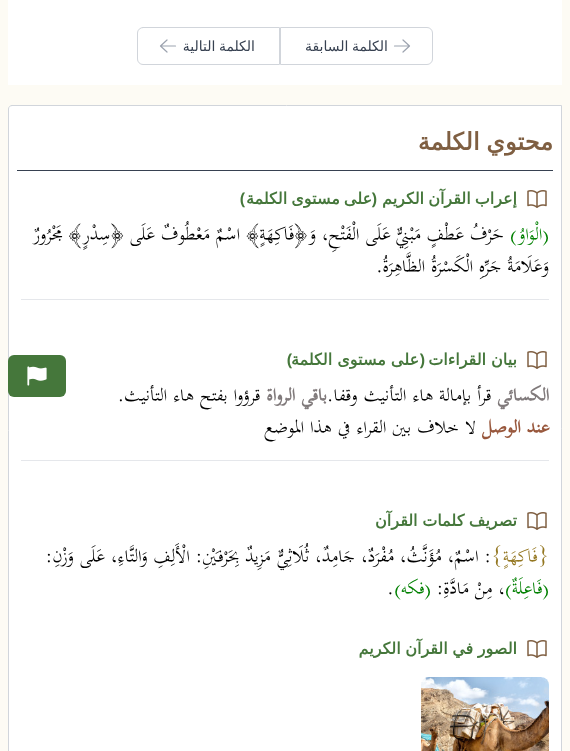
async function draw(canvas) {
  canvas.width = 570
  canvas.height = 751
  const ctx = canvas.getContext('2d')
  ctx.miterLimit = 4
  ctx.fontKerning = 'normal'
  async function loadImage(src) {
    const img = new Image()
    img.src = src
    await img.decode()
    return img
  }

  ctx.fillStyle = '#fdfbf4'
  ctx.fillRect(0, 0, 570, 751)
  ctx.fillStyle = '#fff'
  ctx.fillRect(8, 0, 554, 85)
  ctx.beginPath()
  ctx.roundRect(280.5, 27.5, 152, 37, [0, 5.5, 5.5, 0])
  ctx.strokeStyle = '#d1d5db'
  ctx.stroke()
  ctx.beginPath()
  ctx.moveTo(403, 40)
  ctx.lineTo(409.5, 46)
  ctx.moveTo(409.5, 46)
  ctx.lineTo(403, 52)
  ctx.moveTo(409.5, 46)
  ctx.lineTo(394.5, 46)
  ctx.strokeStyle = '#9ca3af'
  ctx.lineWidth = 1.2
  ctx.lineCap = 'round'
  ctx.lineJoin = 'round'
  ctx.stroke()
  ctx.wordSpacing = '-1px'
  ctx.direction = 'rtl'
  ctx.font = '14px DejaVu Sans'
  ctx.fillStyle = '#374151'
  ctx.fillText('الكلمة السابقة', 388, 51)
  ctx.beginPath()
  ctx.roundRect(137.5, 27.5, 142, 37, [5.5, 0, 0, 5.5])
  ctx.strokeStyle = '#d1d5db'
  ctx.lineWidth = 1
  ctx.lineJoin = 'miter'
  ctx.stroke()
  ctx.fillText('الكلمة التالية', 255, 51)
  ctx.beginPath()
  ctx.moveTo(167, 52)
  ctx.lineTo(160.5, 46)
  ctx.moveTo(160.5, 46)
  ctx.lineTo(167, 40)
  ctx.moveTo(160.5, 46)
  ctx.lineTo(175.5, 46)
  ctx.strokeStyle = '#9ca3af'
  ctx.lineWidth = 1.2
  ctx.lineJoin = 'round'
  ctx.stroke()
  ctx.fillStyle = '#fff'
  ctx.beginPath()
  ctx.moveTo(12, 105.5)
  ctx.lineTo(561.5, 105.5)
  ctx.lineTo(561.5, 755.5)
  ctx.lineTo(12, 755.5)
  ctx.bezierCurveTo(10, 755.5, 8.5, 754, 8.5, 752)
  ctx.lineTo(8.5, 109)
  ctx.bezierCurveTo(8.5, 107, 10, 105.5, 12, 105.5)
  ctx.closePath()
  ctx.fill()
  ctx.strokeStyle = '#d1d5db'
  ctx.lineWidth = 1
  ctx.lineJoin = 'miter'
  ctx.stroke()
  ctx.fillStyle = '#374151'
  ctx.fillRect(17, 170, 536, 1)
  ctx.font = 'bold 24px DejaVu Sans'
  ctx.fillStyle = '#7f5f42'
  ctx.fillText('محتوي الكلمة', 553, 150)
  ctx.drawImage(await loadImage('image0.png'), 527, 190, 20, 18)
  ctx.font = 'bold 16px DejaVu Sans'
  ctx.fillStyle = '#45773b'
  ctx.fillText('إعراب القرآن الكريم', 517, 204)
  ctx.wordSpacing = '0px'
  ctx.font = 'bold 16px Liberation Sans'
  ctx.fillText('(', 377, 204)
  ctx.wordSpacing = '-1px'
  ctx.font = 'bold 16px DejaVu Sans'
  ctx.fillText('على مستوى الكلمة', 372, 204)
  ctx.wordSpacing = '0px'
  ctx.font = 'bold 16px Liberation Sans'
  ctx.fillText(')', 245, 204)
  ctx.font = '24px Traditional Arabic'
  ctx.fillStyle = '#008000'
  ctx.fillText('(الْوَاوُ)', 549, 241)
  ctx.fillStyle = '#000'
  ctx.fillText('حَرْفُ عَطْفٍ مَبْنِيٌّ عَلَى الْفَتْحِ، وَ﴿فَاكِهَةٍ﴾ اسْمٌ مَعْطُوفٌ عَلَى ﴿سِدْرٍ﴾ مَجْرُورٌ', 504, 241)
  ctx.fillText('وَعَلَامَةُ جَرِّهِ الْكَسْرَةُ الظَّاهِرَةُ.', 549, 273)
  ctx.fillStyle = '#e5e7eb'
  ctx.fillRect(21, 299, 528, 1)
  ctx.drawImage(await loadImage('image0.png'), 527, 351, 20, 18)
  ctx.font = 'bold 16px DejaVu Sans'
  ctx.fillStyle = '#45773b'
  ctx.fillText('بيان القراءات', 517, 365)
  ctx.font = 'bold 16px Liberation Sans'
  ctx.fillText('(', 425, 365)
  ctx.font = 'bold 16px DejaVu Sans'
  ctx.fillText('على مستوى الكلمة', 419, 365)
  ctx.font = 'bold 16px Liberation Sans'
  ctx.fillText(')', 292, 365)
  ctx.font = 'bold 24px Traditional Arabic'
  ctx.fillStyle = '#807a7b'
  ctx.fillText('الكسائي', 549, 402)
  ctx.font = '24px Traditional Arabic'
  ctx.fillStyle = '#000'
  ctx.fillText('قرأ بإمالة هاء التأنيث وقفا.', 491, 402)
  ctx.font = 'bold 24px Traditional Arabic'
  ctx.fillStyle = '#807a7b'
  ctx.fillText('باقي الرواة', 327, 402)
  ctx.font = '24px Traditional Arabic'
  ctx.fillStyle = '#000'
  ctx.fillText('قرؤوا بفتح هاء التأنيث.', 260, 402)
  ctx.font = 'bold 24px Traditional Arabic'
  ctx.fillStyle = '#98573c'
  ctx.fillText('عند الوصل', 549, 434)
  ctx.font = '24px Traditional Arabic'
  ctx.fillStyle = '#000'
  ctx.fillText('لا خلاف بين القراء في هذا الموضع', 476, 434)
  ctx.fillStyle = '#e5e7eb'
  ctx.fillRect(21, 460, 528, 1)
  ctx.drawImage(await loadImage('image0.png'), 527, 512, 20, 18)
  ctx.wordSpacing = '-0.5px'
  ctx.font = 'bold 16px DejaVu Sans'
  ctx.fillStyle = '#45773b'
  ctx.fillText('تصريف كلمات القرآن', 517, 526)
  ctx.wordSpacing = '0px'
  ctx.font = '24px Traditional Arabic'
  ctx.fillStyle = '#947721'
  ctx.fillText('{فَاكِهَةٍ}', 549, 563)
  ctx.fillStyle = '#000'
  ctx.fillText(': اسْمٌ، مُؤَنَّثُ، مُفْرَدٌ، جَامِدٌ، ثُلَاثِيٌّ مَزِيدٌ بِحَرْفَيْنِ: الْأَلِفِ وَالتَّاءِ، عَلَى وَزْنِ:', 491, 563)
  ctx.fillStyle = '#008000'
  ctx.fillText('(فَاعِلَةٌ)', 549, 595)
  ctx.fillStyle = '#000'
  ctx.fillText('، مِنْ مَادَّةِ:', 505, 595)
  ctx.fillStyle = '#008000'
  ctx.fillText('(فكه)', 431, 595)
  ctx.direction = 'ltr'
  ctx.fillStyle = '#000'
  ctx.fillText('.', 387, 595)
  ctx.drawImage(await loadImage('image0.png'), 527, 640, 20, 18)
  ctx.wordSpacing = '-0.5px'
  ctx.direction = 'rtl'
  ctx.font = 'bold 16px DejaVu Sans'
  ctx.fillStyle = '#45773b'
  ctx.fillText('الصور في القرآن الكريم', 517, 654)
  ctx.drawImage(await loadImage('image1.png'), 421, 677, 128, 74)
  ctx.beginPath()
  ctx.roundRect(8, 355, 58, 42, 6)
  ctx.fill()
  ctx.drawImage(await loadImage('image2.png'), 27, 366, 20, 20)
}

draw(document.querySelector('canvas'))
